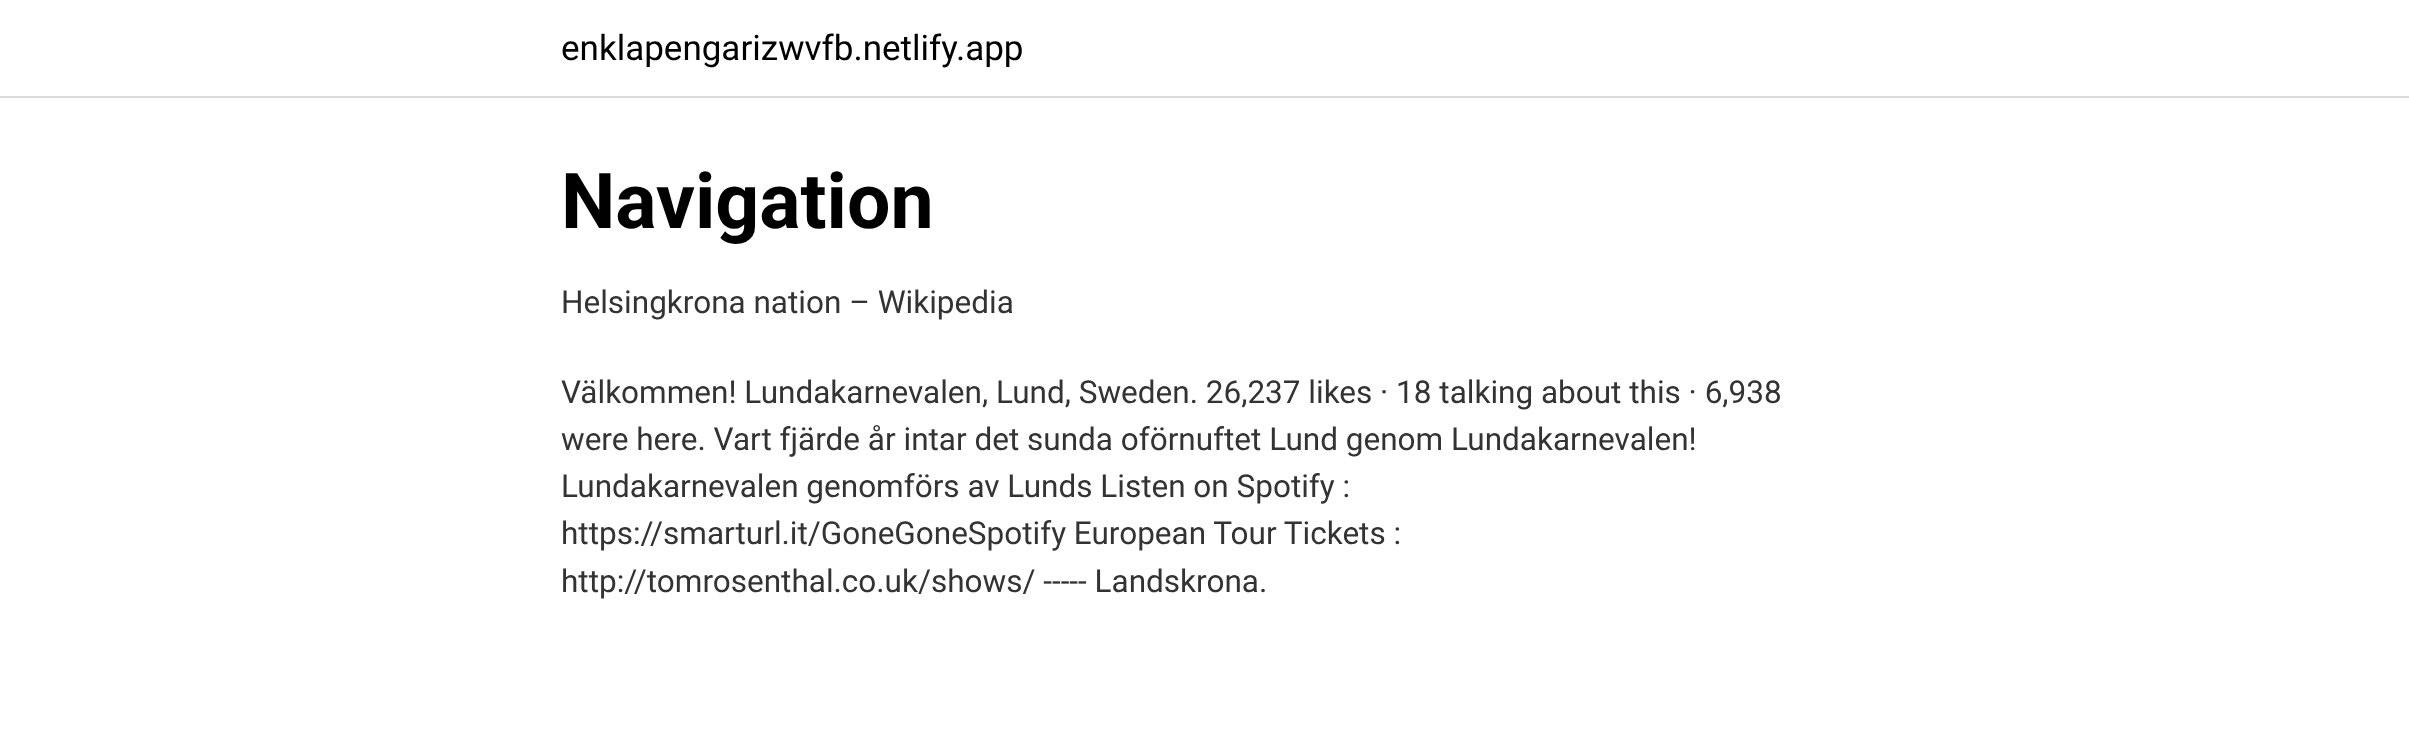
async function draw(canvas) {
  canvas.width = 2409
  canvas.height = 754
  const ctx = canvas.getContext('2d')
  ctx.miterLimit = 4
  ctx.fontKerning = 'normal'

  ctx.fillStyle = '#fff'
  ctx.fillRect(0, 0, 2409, 754)
  ctx.fillStyle = '#dbdbdb'
  ctx.fillRect(0, 96, 2409, 2)
  ctx.font = '35px Roboto'
  ctx.fillStyle = '#000'
  ctx.fillText('enklapengarizwvfb.netlify.app', 561, 60)
  ctx.font = 'bold 77px Roboto'
  ctx.fillText('Navigation', 561, 228)
  ctx.font = '31.5px Roboto'
  ctx.fillStyle = '#333'
  ctx.fillText('Helsingkrona nation – Wikipedia', 561, 313)
  ctx.fillText('Välkommen! Lundakarnevalen, Lund, Sweden. 26,237 likes · 18 talking about this · 6,938', 561, 403)
  ctx.fillText('were here. Vart fjärde år intar det sunda oförnuftet Lund genom Lundakarnevalen!', 561, 450)
  ctx.fillText('Lundakarnevalen genomförs av Lunds Listen on Spotify :', 561, 497)
  ctx.fillText('https://smarturl.it/GoneGoneSpotify European Tour Tickets :', 561, 544)
  ctx.fillText('http://tomrosenthal.co.uk/shows/ ----- Landskrona.', 561, 592)
}

draw(document.querySelector('canvas'))
